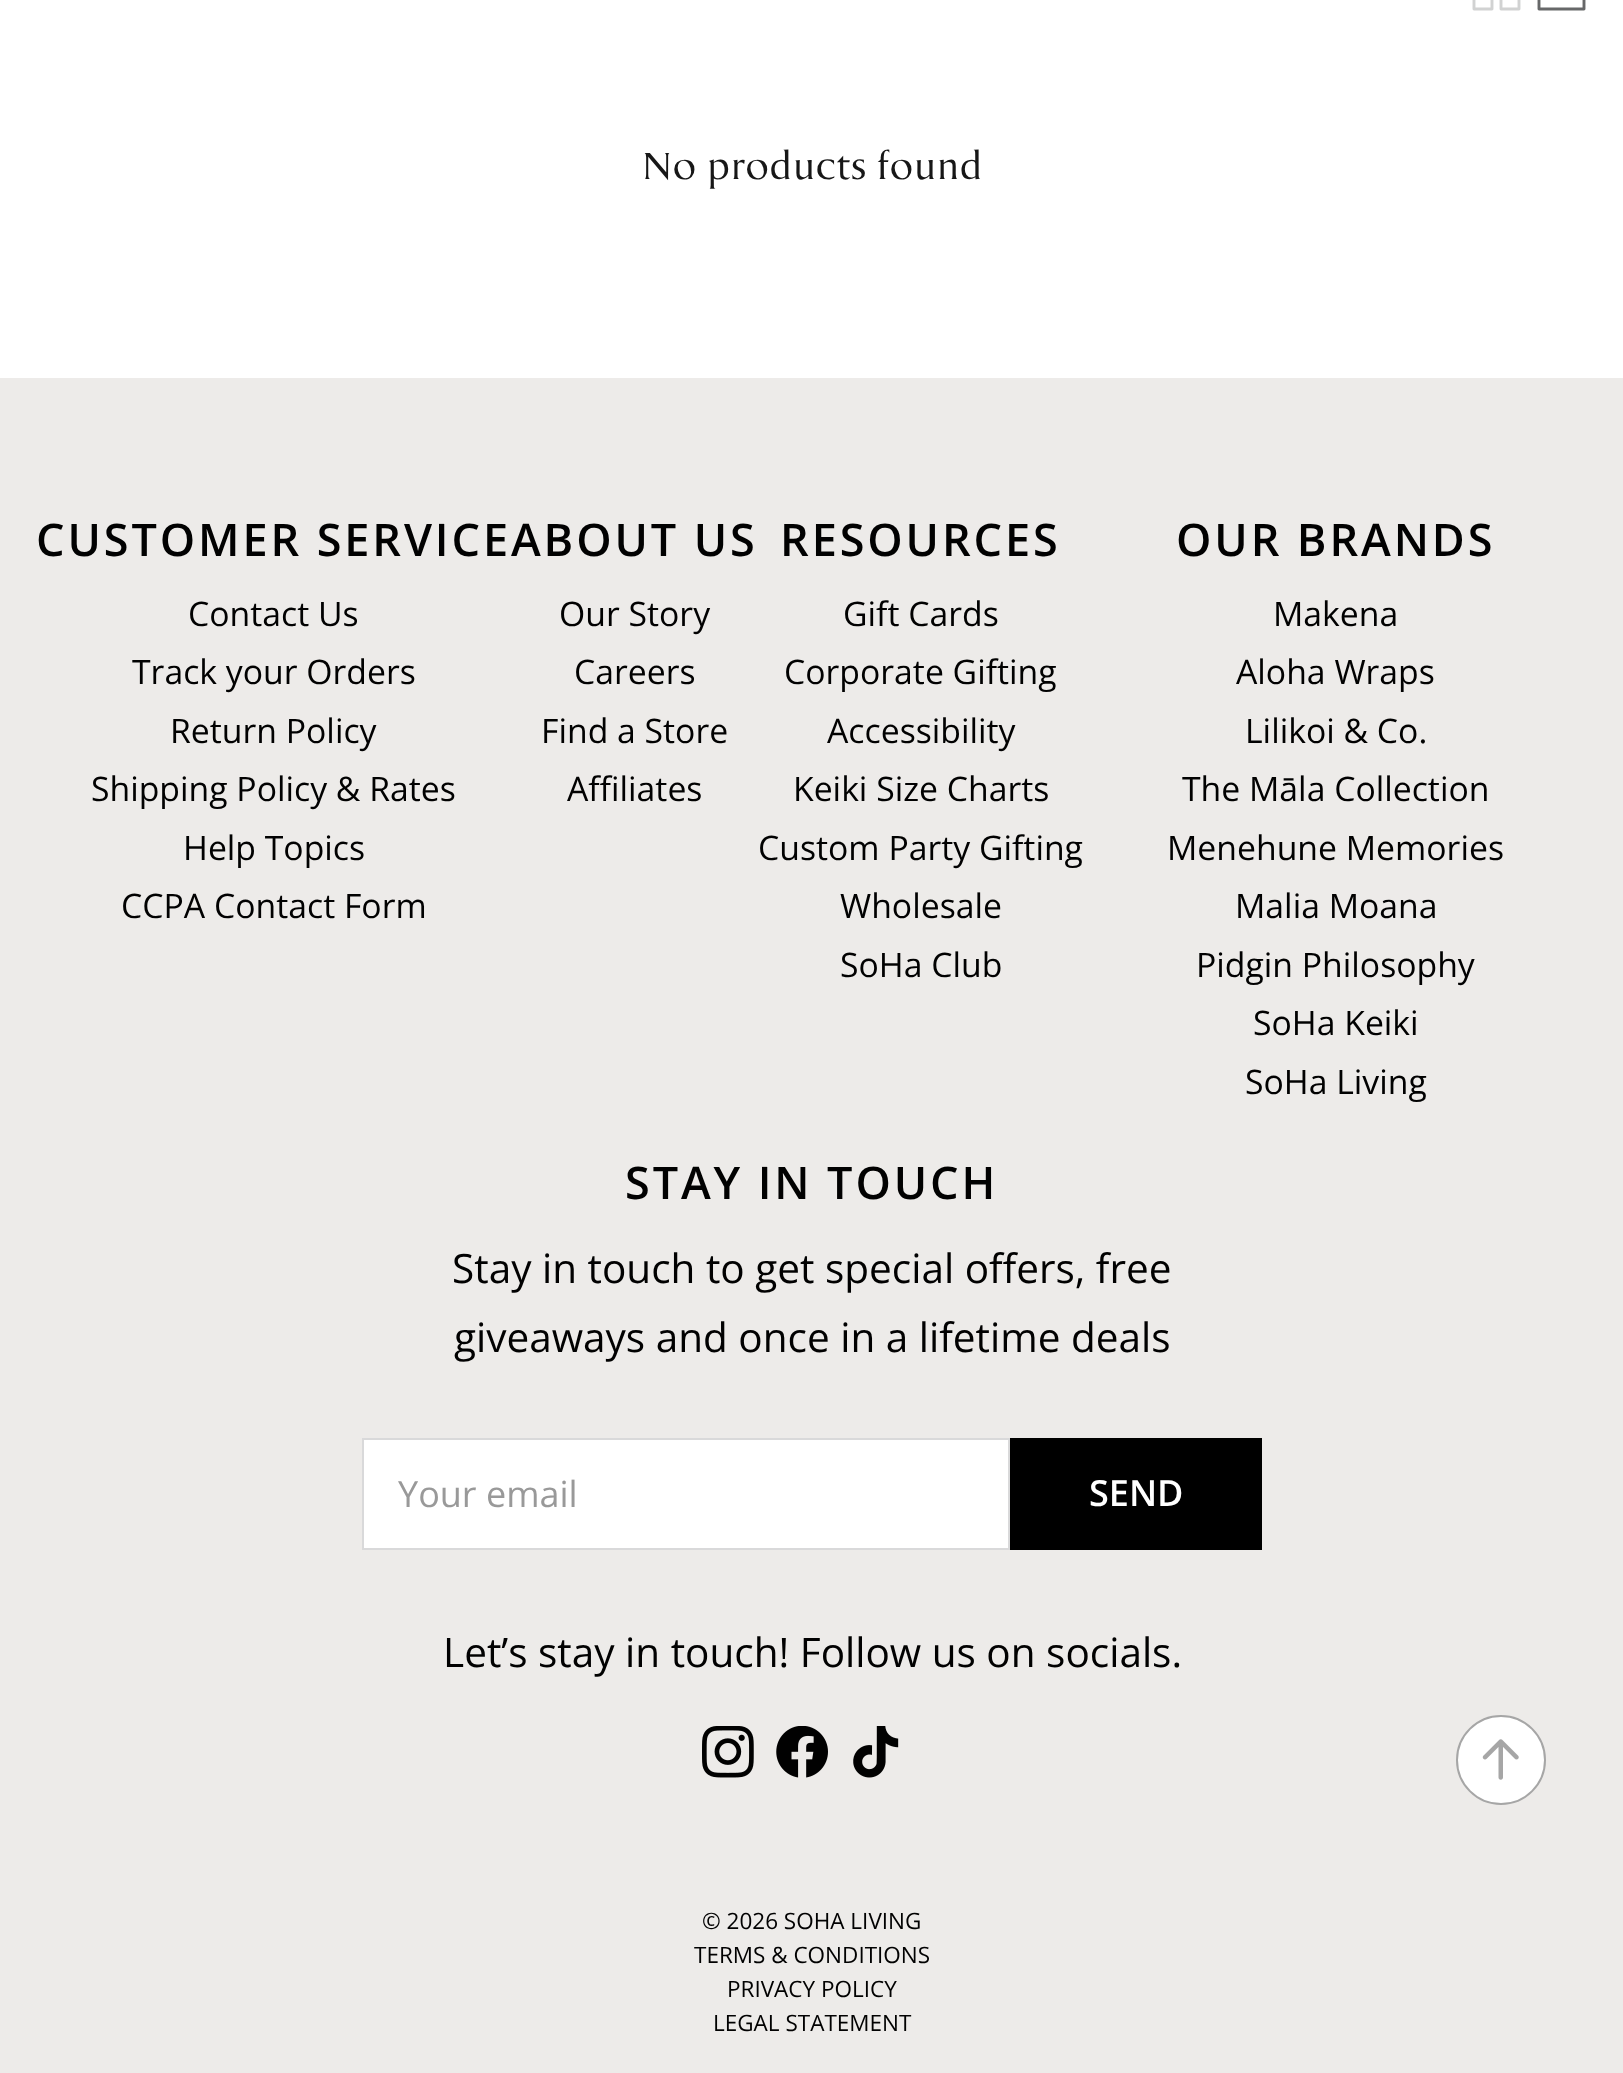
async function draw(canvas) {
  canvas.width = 1623
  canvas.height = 2073
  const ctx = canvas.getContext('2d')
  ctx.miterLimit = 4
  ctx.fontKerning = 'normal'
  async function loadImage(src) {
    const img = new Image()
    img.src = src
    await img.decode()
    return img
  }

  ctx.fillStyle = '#fff'
  ctx.fillRect(0, 0, 1623, 2073)
  ctx.beginPath()
  ctx.moveTo(1474, -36)
  ctx.lineTo(1492, -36)
  ctx.lineTo(1492, -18)
  ctx.lineTo(1474, -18)
  ctx.lineTo(1474, -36)
  ctx.moveTo(1501, -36)
  ctx.lineTo(1519, -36)
  ctx.lineTo(1519, -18)
  ctx.lineTo(1501, -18)
  ctx.lineTo(1501, -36)
  ctx.moveTo(1501, -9)
  ctx.lineTo(1519, -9)
  ctx.lineTo(1519, 9)
  ctx.lineTo(1501, 9)
  ctx.lineTo(1501, -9)
  ctx.moveTo(1474, -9)
  ctx.lineTo(1492, -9)
  ctx.lineTo(1492, 9)
  ctx.lineTo(1474, 9)
  ctx.lineTo(1474, -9)
  ctx.strokeStyle = '#d1d2d2'
  ctx.lineWidth = 2.9
  ctx.lineCap = 'round'
  ctx.lineJoin = 'round'
  ctx.stroke()
  ctx.beginPath()
  ctx.moveTo(1539, -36)
  ctx.lineTo(1584, -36)
  ctx.lineTo(1584, 9)
  ctx.lineTo(1539, 9)
  ctx.lineTo(1539, -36)
  ctx.strokeStyle = '#676869'
  ctx.stroke()
  ctx.font = '40.25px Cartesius'
  ctx.fillStyle = '#171717'
  ctx.fillText('No products found', 642, 179)
  ctx.fillStyle = '#edebe9'
  ctx.fillRect(0, 378, 1623, 1695)
  ctx.letterSpacing = '2.9px'
  ctx.font = '600 45px Open Sans'
  ctx.fillStyle = '#010101'
  ctx.fillText('CUSTOMER SERVICEABOUT US', 36, 556)
  ctx.letterSpacing = '0px'
  ctx.font = '33.75px Open Sans'
  ctx.fillText('Contact Us', 188, 626)
  ctx.fillText('Track your Orders', 132, 684)
  ctx.fillText('Return Policy', 170, 743)
  ctx.fillText('Shipping Policy & Rates', 91, 801)
  ctx.fillText('Help Topics', 183, 860)
  ctx.fillText('CCPA Contact Form', 121, 918)
  ctx.letterSpacing = '2.9px'
  ctx.font = '600 45px Open Sans'
  ctx.fillText('RESOURCES', 780, 556)
  ctx.letterSpacing = '0px'
  ctx.font = '33.75px Open Sans'
  ctx.fillText('Gift Cards', 843, 626)
  ctx.fillText('Corporate Gifting', 784, 684)
  ctx.fillText('Accessibility', 827, 743)
  ctx.fillText('Keiki Size Charts', 793, 801)
  ctx.fillText('Custom Party Gifting', 758, 860)
  ctx.fillText('Wholesale', 840, 918)
  ctx.fillText('SoHa Club', 840, 977)
  ctx.letterSpacing = '2.9px'
  ctx.font = '600 45px Open Sans'
  ctx.fillText('OUR BRANDS', 1176, 556)
  ctx.letterSpacing = '0px'
  ctx.font = '33.75px Open Sans'
  ctx.fillText('Makena', 1273, 626)
  ctx.fillText('Aloha Wraps', 1236, 684)
  ctx.fillText('Lilikoi & Co.', 1245, 743)
  ctx.fillText('The Māla Collection', 1182, 801)
  ctx.fillText('Menehune Memories', 1167, 860)
  ctx.fillText('Malia Moana', 1235, 918)
  ctx.fillText('Pidgin Philosophy', 1196, 977)
  ctx.fillText('SoHa Keiki', 1253, 1035)
  ctx.fillText('SoHa Living', 1245, 1094)
  ctx.fillText('Our Story', 559, 626)
  ctx.fillText('Careers', 574, 684)
  ctx.fillText('Find a Store', 541, 743)
  ctx.fillText('Affiliates', 567, 801)
  ctx.letterSpacing = '2.9px'
  ctx.font = '600 45px Open Sans'
  ctx.fillText('STAY IN TOUCH', 625, 1199)
  ctx.letterSpacing = '0px'
  ctx.font = '40.5px Open Sans'
  ctx.fillText('Stay in touch to get special offers, free', 452, 1283)
  ctx.fillText('giveaways and once in a lifetime deals', 454, 1352)
  ctx.fillStyle = '#fff'
  ctx.beginPath()
  ctx.rect(363, 1439, 646, 110)
  ctx.fill()
  ctx.strokeStyle = '#d9d9da'
  ctx.lineWidth = 2
  ctx.lineJoin = 'miter'
  ctx.stroke()
  ctx.font = '36px Open Sans'
  ctx.fillStyle = '#999'
  ctx.fillText('Your email', 398, 1507)
  ctx.fillStyle = '#000'
  ctx.fillRect(1010, 1438, 252, 112)
  ctx.font = '600 36px Open Sans'
  ctx.fillStyle = '#fff'
  ctx.fillText('SEND', 1089, 1506)
  ctx.font = '40.5px Open Sans'
  ctx.fillStyle = '#010101'
  ctx.fillText('Let’s stay in touch! Follow us on socials.', 443, 1667)
  ctx.drawImage(await loadImage('image0.png'), 702, 1726, 52, 52)
  ctx.drawImage(await loadImage('image1.png'), 776, 1726, 52, 52)
  ctx.drawImage(await loadImage('image2.png'), 853, 1726, 46, 52)
  ctx.font = '22.5px Open Sans'
  ctx.fillText('© 2026 SOHA LIVING', 702, 1929)
  ctx.fillText('TERMS & CONDITIONS', 694, 1963)
  ctx.fillText('PRIVACY POLICY', 727, 1997)
  ctx.fillText('LEGAL STATEMENT', 713, 2031)
  ctx.fillStyle = '#fff'
  ctx.beginPath()
  ctx.arc(1501, 1760, 44, 0, 2 * Math.PI)
  ctx.fill()
  ctx.strokeStyle = '#a6a6a6'
  ctx.stroke()
  ctx.drawImage(await loadImage('image3.png'), 1482, 1739, 37, 41)
}

draw(document.querySelector('canvas'))
